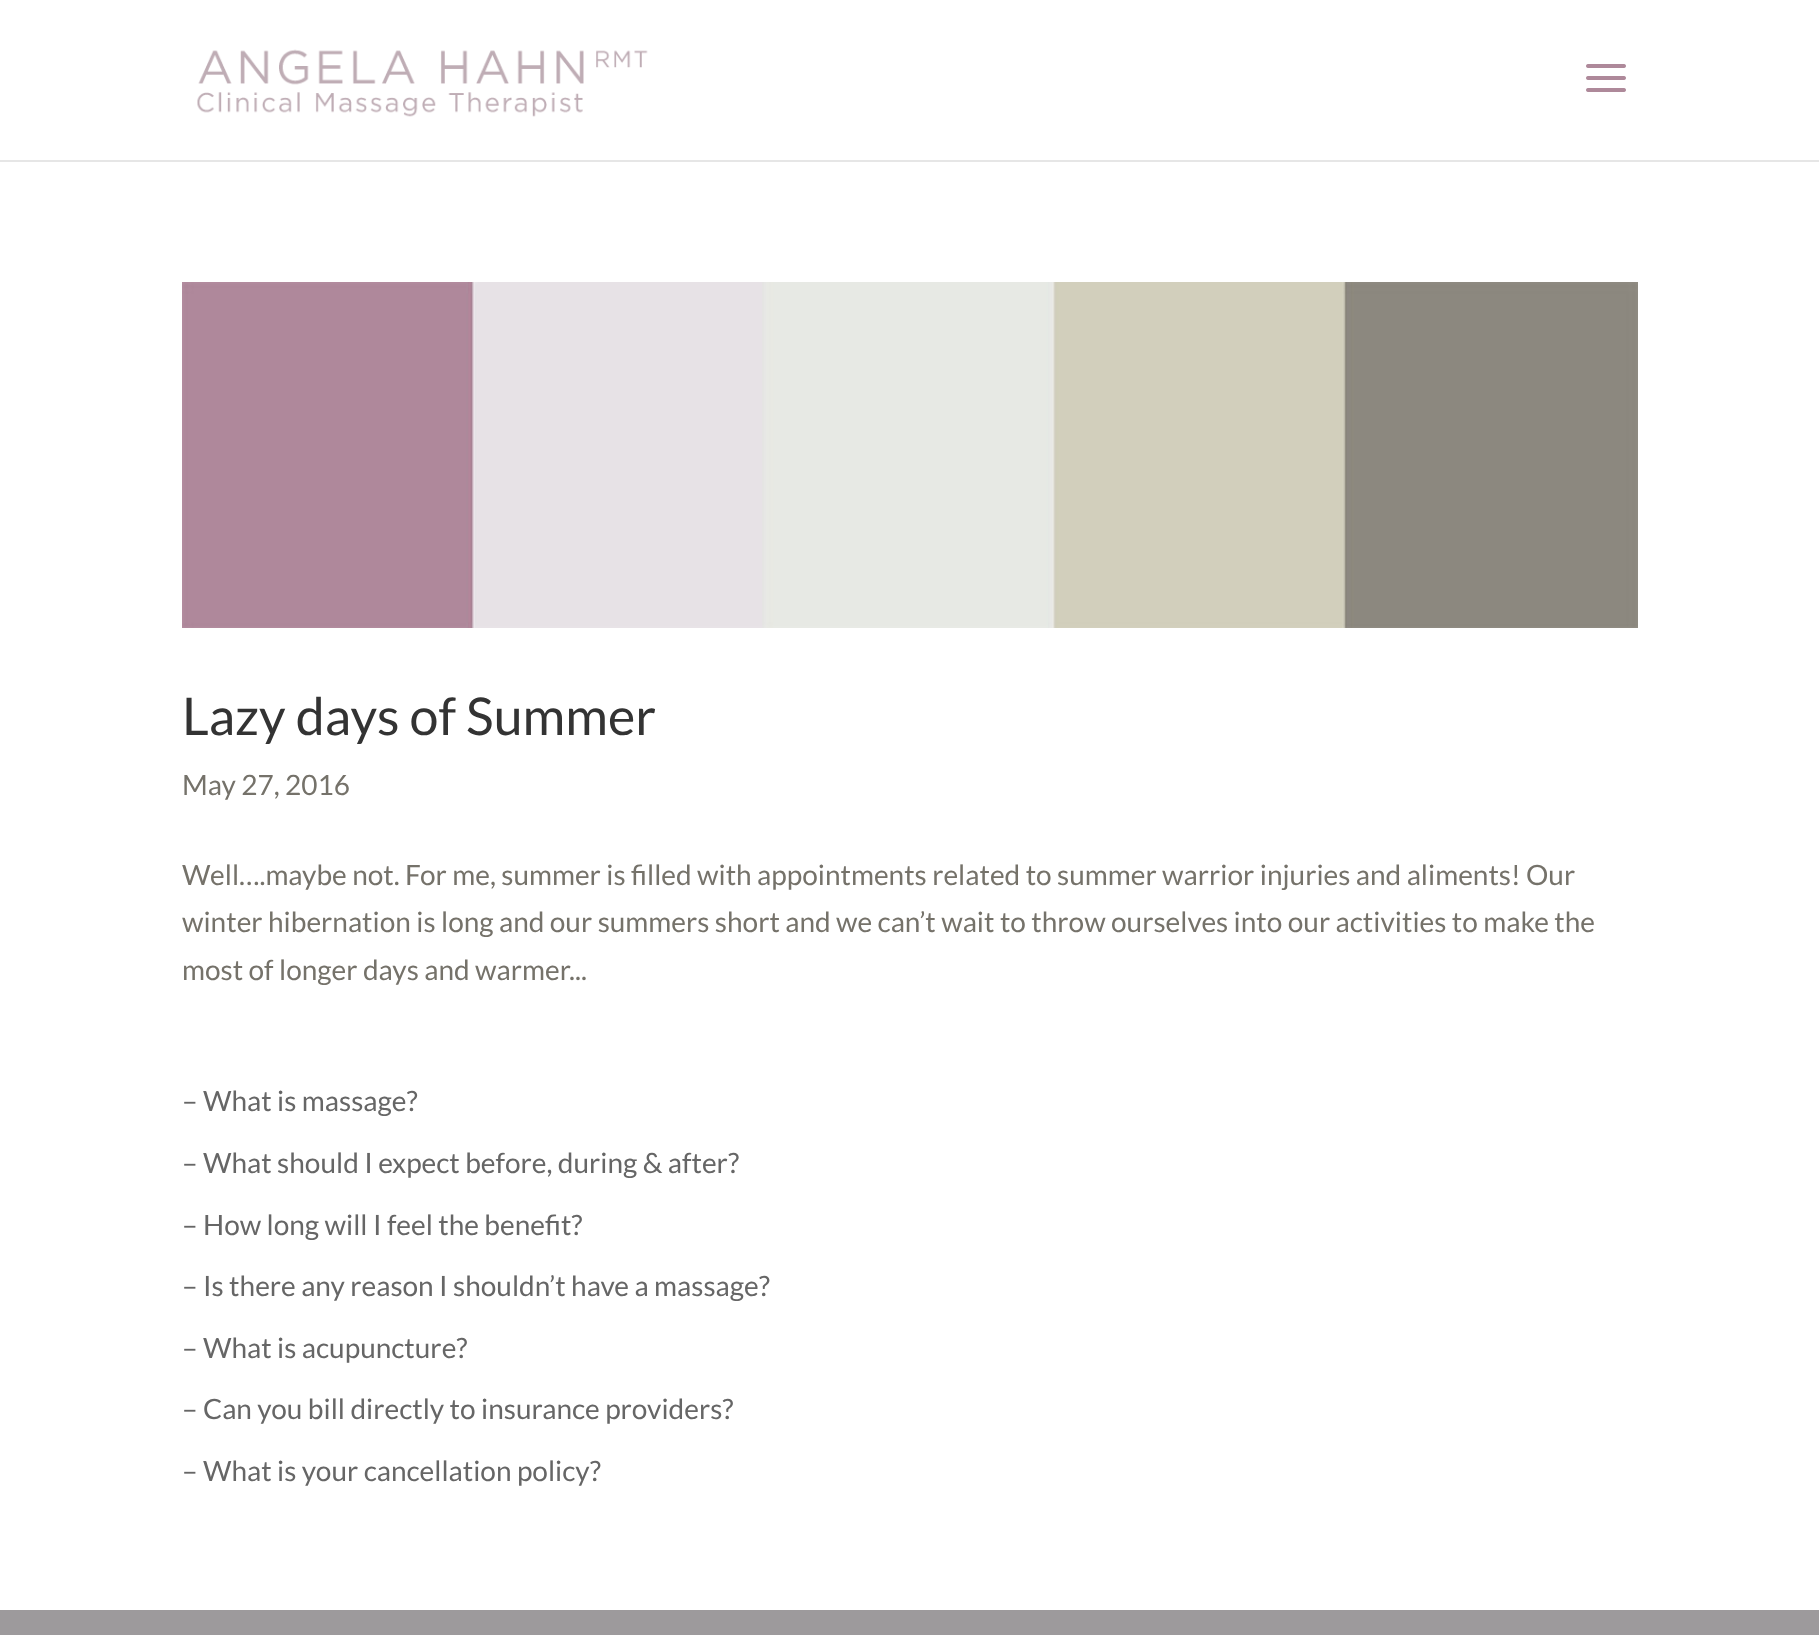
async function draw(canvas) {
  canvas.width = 1819
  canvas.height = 1635
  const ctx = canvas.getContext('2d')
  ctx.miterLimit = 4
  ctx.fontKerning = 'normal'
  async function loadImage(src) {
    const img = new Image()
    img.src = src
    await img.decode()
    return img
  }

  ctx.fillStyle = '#fff'
  ctx.fillRect(0, 0, 1819, 1635)
  ctx.fillStyle = '#e6e6e6'
  ctx.fillRect(0, 160, 1819, 2)
  ctx.drawImage(await loadImage('image0.png'), 197, 49, 451, 68)
  ctx.drawImage(await loadImage('image1.png'), 1586, 64, 40, 28)
  ctx.drawImage(await loadImage('image2.png'), 182, 282, 1456, 346)
  ctx.font = '52px Lato'
  ctx.fillStyle = '#333'
  ctx.fillText('Lazy days of Summer', 182, 735)
  ctx.font = '28px Lato'
  ctx.fillStyle = '#75726a'
  ctx.fillText('May 27, 2016', 182, 795)
  ctx.fillText('Well….maybe not. For me, summer is filled with appointments related to summer warrior injuries and aliments! Our', 182, 885)
  ctx.fillText('winter hibernation is long and our summers short and we can’t wait to throw ourselves into our activities to make the', 182, 932)
  ctx.fillText('most of longer days and warmer...', 182, 980)
  ctx.fillStyle = '#666'
  ctx.fillText('– What is massage?', 182, 1111)
  ctx.fillText('– What should I expect before, during & after?', 182, 1173)
  ctx.fillText('– How long will I feel the benefit?', 182, 1235)
  ctx.fillText('– Is there any reason I shouldn’t have a massage?', 182, 1296)
  ctx.fillText('– What is acupuncture?', 182, 1358)
  ctx.fillText('– Can you bill directly to insurance providers?', 182, 1419)
  ctx.fillText('– What is your cancellation policy?', 182, 1481)
  ctx.fillStyle = '#9d9a9c'
  ctx.fillRect(0, 1610, 1819, 25)
}

draw(document.querySelector('canvas'))
